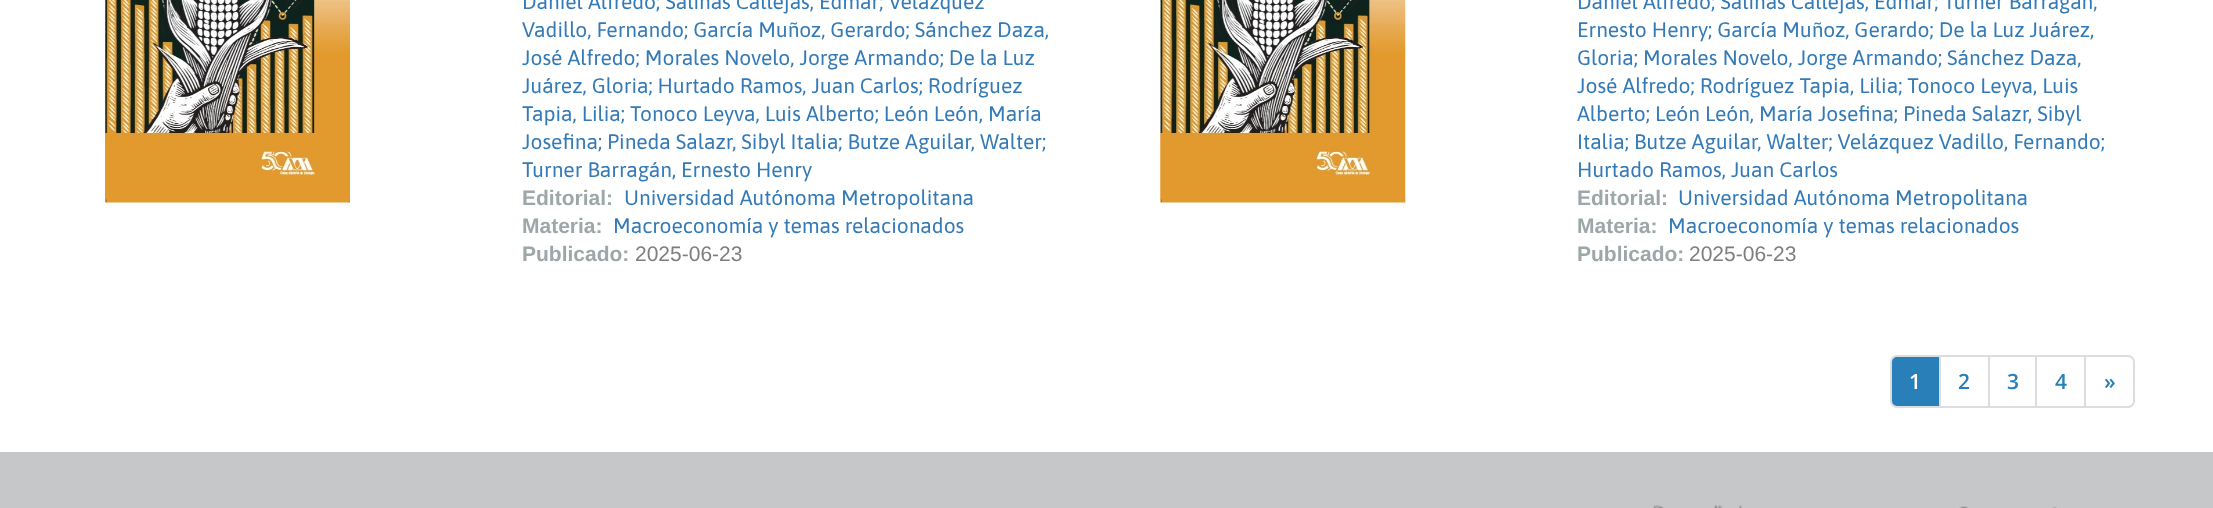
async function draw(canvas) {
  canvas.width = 2213
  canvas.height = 508
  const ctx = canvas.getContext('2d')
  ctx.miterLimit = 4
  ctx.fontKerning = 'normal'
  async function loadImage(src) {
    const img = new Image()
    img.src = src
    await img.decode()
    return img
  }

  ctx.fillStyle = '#fff'
  ctx.fillRect(0, 0, 2213, 508)
  ctx.drawImage(await loadImage('image0.png'), 105, 0, 245, 203)
  ctx.font = '21px Asap'
  ctx.fillStyle = '#337ab7'
  ctx.fillText('Daniel Alfredo; Salinas Callejas, Edmar; Velázquez', 522, 9)
  ctx.fillText('Vadillo, Fernando; García Muñoz, Gerardo; Sánchez Daza,', 522, 37)
  ctx.fillText('José Alfredo; Morales Novelo, Jorge Armando; De la Luz', 522, 65)
  ctx.fillText('Juárez, Gloria; Hurtado Ramos, Juan Carlos; Rodríguez', 522, 93)
  ctx.fillText('Tapia, Lilia; Tonoco Leyva, Luis Alberto; León León, María', 522, 121)
  ctx.fillText('Josefina; Pineda Salazr, Sibyl Italia; Butze Aguilar, Walter;', 522, 149)
  ctx.fillText('Turner Barragán, Ernesto Henry', 522, 177)
  ctx.font = 'bold 21px Liberation Sans'
  ctx.fillStyle = '#9da7a8'
  ctx.fillText('Editorial:', 522, 205)
  ctx.font = '21px Asap'
  ctx.fillStyle = '#337ab7'
  ctx.fillText('Universidad Autónoma Metropolitana', 624, 205)
  ctx.font = 'bold 21px Liberation Sans'
  ctx.fillStyle = '#9da7a8'
  ctx.fillText('Materia:', 522, 233)
  ctx.font = '21px Asap'
  ctx.fillStyle = '#337ab7'
  ctx.fillText('Macroeconomía y temas relacionados', 613, 233)
  ctx.font = 'bold 21px Liberation Sans'
  ctx.fillStyle = '#9da7a8'
  ctx.fillText('Publicado:', 522, 261)
  ctx.font = '21px Liberation Sans'
  ctx.fillStyle = '#7c807d'
  ctx.fillText('2025-06-23', 635, 261)
  ctx.drawImage(await loadImage('image1.png'), 1160, 0, 246, 203)
  ctx.font = '21px Asap'
  ctx.fillStyle = '#337ab7'
  ctx.fillText('Daniel Alfredo; Salinas Callejas, Edmar; Turner Barragán,', 1577, 9)
  ctx.fillText('Ernesto Henry; García Muñoz, Gerardo; De la Luz Juárez,', 1577, 37)
  ctx.fillText('Gloria; Morales Novelo, Jorge Armando; Sánchez Daza,', 1577, 65)
  ctx.fillText('José Alfredo; Rodríguez Tapia, Lilia; Tonoco Leyva, Luis', 1577, 93)
  ctx.fillText('Alberto; León León, María Josefina; Pineda Salazr, Sibyl', 1577, 121)
  ctx.fillText('Italia; Butze Aguilar, Walter; Velázquez Vadillo, Fernando;', 1577, 149)
  ctx.fillText('Hurtado Ramos, Juan Carlos', 1577, 177)
  ctx.font = 'bold 21px Liberation Sans'
  ctx.fillStyle = '#9da7a8'
  ctx.fillText('Editorial:', 1577, 205)
  ctx.font = '21px Asap'
  ctx.fillStyle = '#337ab7'
  ctx.fillText('Universidad Autónoma Metropolitana', 1678, 205)
  ctx.font = 'bold 21px Liberation Sans'
  ctx.fillStyle = '#9da7a8'
  ctx.fillText('Materia:', 1577, 233)
  ctx.font = '21px Asap'
  ctx.fillStyle = '#337ab7'
  ctx.fillText('Macroeconomía y temas relacionados', 1668, 233)
  ctx.font = 'bold 21px Liberation Sans'
  ctx.fillStyle = '#9da7a8'
  ctx.fillText('Publicado:', 1577, 261)
  ctx.font = '21px Liberation Sans'
  ctx.fillStyle = '#7c807d'
  ctx.fillText('2025-06-23', 1689, 261)
  ctx.fillStyle = '#2980b9'
  ctx.beginPath()
  ctx.roundRect(1891, 356, 49, 51, [6, 0, 0, 6])
  ctx.fill()
  ctx.strokeStyle = '#ddd'
  ctx.lineWidth = 2
  ctx.stroke()
  ctx.font = '600 21px Open Sans'
  ctx.fillStyle = '#fff'
  ctx.fillText('1', 1909, 389)
  ctx.strokeRect(1940, 356, 49, 51)
  ctx.fillStyle = '#2980b9'
  ctx.fillText('2', 1958, 389)
  ctx.strokeRect(1989, 356, 47, 51)
  ctx.fillText('3', 2007, 389)
  ctx.strokeRect(2036, 356, 49, 51)
  ctx.fillText('4', 2055, 389)
  ctx.beginPath()
  ctx.roundRect(2085, 356, 49, 51, [0, 6, 6, 0])
  ctx.stroke()
  ctx.fillText('»', 2104, 389)
  ctx.fillStyle = '#c6c7c8'
  ctx.fillRect(0, 452, 2213, 56)
  ctx.drawImage(await loadImage('image2.png'), 1653, 505, 404, 3)
}

draw(document.querySelector('canvas'))
